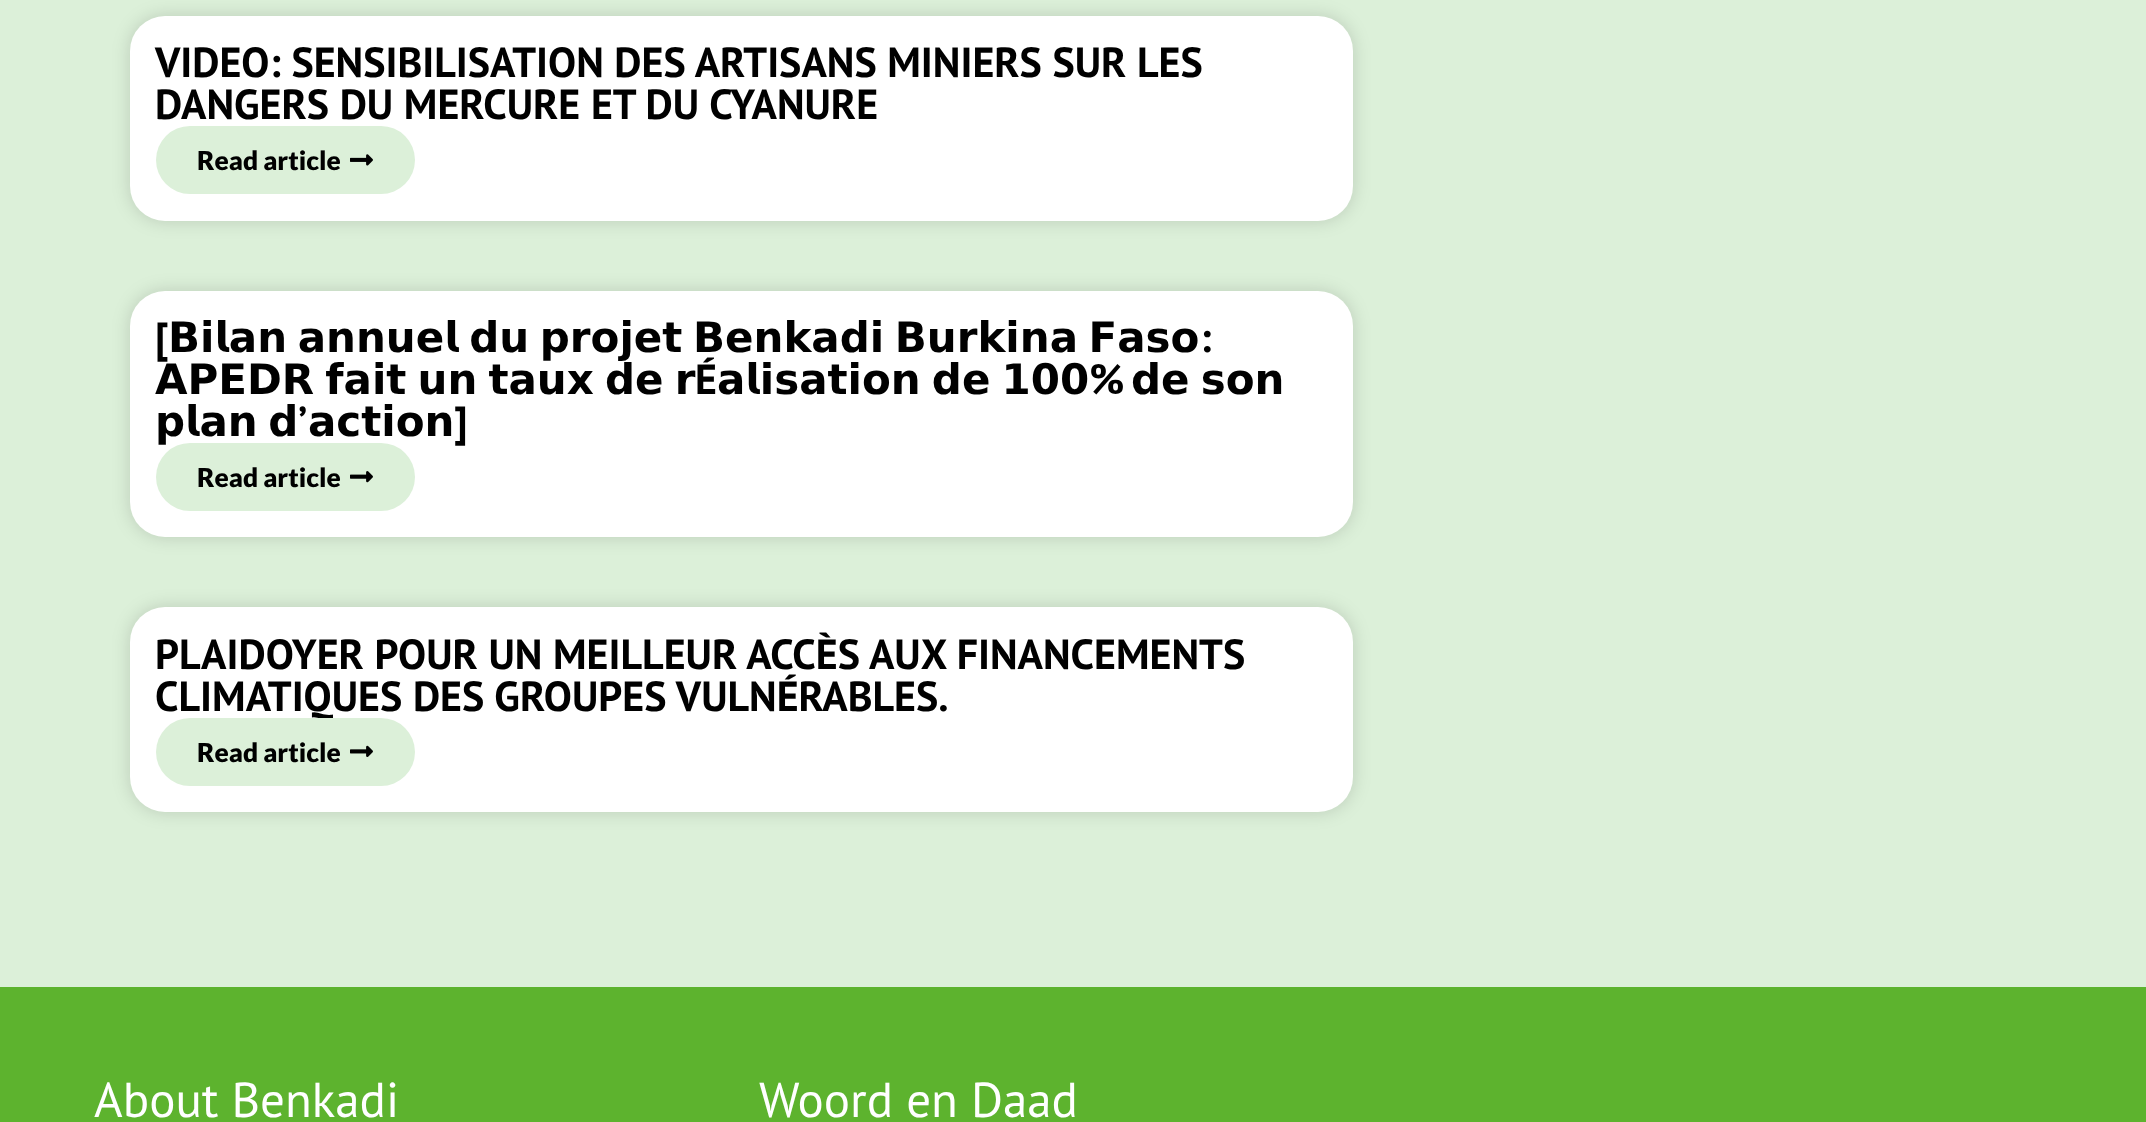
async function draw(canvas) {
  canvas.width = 2146
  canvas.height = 1122
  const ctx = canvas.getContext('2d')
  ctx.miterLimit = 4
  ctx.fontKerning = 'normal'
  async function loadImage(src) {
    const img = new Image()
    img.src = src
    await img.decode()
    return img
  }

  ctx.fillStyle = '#dcf0d9'
  ctx.fillRect(0, 0, 2146, 1122)
  ctx.fillStyle = '#00000026'
  ctx.filter = 'blur(9px)'
  ctx.beginPath()
  ctx.roundRect(130, 16, 1223, 205, 35)
  ctx.fill()
  ctx.filter = 'none'
  ctx.fillStyle = '#fff'
  ctx.beginPath()
  ctx.roundRect(130, 16, 1223, 205, 35)
  ctx.fill()
  ctx.font = 'bold 42px PT Sans'
  ctx.fillStyle = '#000'
  ctx.fillText('VIDEO: SENSIBILISATION DES ARTISANS MINIERS SUR LES', 155, 77)
  ctx.fillText('DANGERS DU MERCURE ET DU CYANURE', 155, 119)
  ctx.fillStyle = '#dcf0d9'
  ctx.beginPath()
  ctx.roundRect(156, 126, 259, 68, 34)
  ctx.fill()
  ctx.font = '900 26.25px Lato'
  ctx.fillStyle = '#000'
  ctx.fillText('Read article', 197, 170)
  ctx.drawImage(await loadImage('image0.png'), 350, 154, 23, 12)
  ctx.fillStyle = '#00000026'
  ctx.filter = 'blur(9px)'
  ctx.beginPath()
  ctx.roundRect(130, 291, 1223, 246, 35)
  ctx.fill()
  ctx.filter = 'none'
  ctx.fillStyle = '#fff'
  ctx.beginPath()
  ctx.roundRect(130, 291, 1223, 246, 35)
  ctx.fill()
  ctx.font = 'bold 42px PT Sans'
  ctx.fillStyle = '#000'
  ctx.fillText('[', 155, 352)
  ctx.wordSpacing = '-4px'
  ctx.font = 'bold 42px DejaVu Sans'
  ctx.fillText('𝗕𝗶𝗹𝗮𝗻 𝗮𝗻𝗻𝘂𝗲𝗹 𝗱𝘂 𝗽𝗿𝗼𝗷𝗲𝘁 𝗕𝗲𝗻𝗸𝗮𝗱𝗶 𝗕𝘂𝗿𝗸𝗶𝗻𝗮 𝗙𝗮𝘀𝗼', 168, 352)
  ctx.wordSpacing = '0px'
  ctx.font = 'bold 42px PT Sans'
  ctx.fillText(':', 1200, 352)
  ctx.wordSpacing = '-3.5px'
  ctx.font = 'bold 42px DejaVu Sans'
  ctx.fillText('𝗔𝗣𝗘𝗗𝗥 𝗳𝗮𝗶𝘁 𝘂𝗻 𝘁𝗮𝘂𝘅 𝗱𝗲 𝗿', 155, 394)
  ctx.wordSpacing = '0px'
  ctx.font = 'bold 42px PT Sans'
  ctx.fillText('É', 695, 394)
  ctx.wordSpacing = '-3.5px'
  ctx.font = 'bold 42px DejaVu Sans'
  ctx.fillText('𝗮𝗹𝗶𝘀𝗮𝘁𝗶𝗼𝗻 𝗱𝗲 𝟭𝟬𝟬', 717, 394)
  ctx.wordSpacing = '0px'
  ctx.font = 'bold 42px PT Sans'
  ctx.fillText('%', 1089, 394)
  ctx.wordSpacing = '-3.5px'
  ctx.font = 'bold 42px DejaVu Sans'
  ctx.fillText('𝗱𝗲 𝘀𝗼𝗻', 1131, 394)
  ctx.wordSpacing = '-4px'
  ctx.fillText('𝗽𝗹𝗮𝗻 𝗱', 155, 436)
  ctx.wordSpacing = '0px'
  ctx.font = 'bold 42px PT Sans'
  ctx.fillText('’', 298, 436)
  ctx.font = 'bold 42px DejaVu Sans'
  ctx.fillText('𝗮𝗰𝘁𝗶𝗼𝗻', 308, 436)
  ctx.font = 'bold 42px PT Sans'
  ctx.fillText(']', 454, 436)
  ctx.fillStyle = '#dcf0d9'
  ctx.beginPath()
  ctx.roundRect(156, 443, 259, 68, 34)
  ctx.fill()
  ctx.font = '900 26.25px Lato'
  ctx.fillStyle = '#000'
  ctx.fillText('Read article', 197, 487)
  ctx.drawImage(await loadImage('image1.png'), 350, 471, 23, 12)
  ctx.fillStyle = '#00000026'
  ctx.filter = 'blur(9px)'
  ctx.beginPath()
  ctx.roundRect(130, 607, 1223, 205, 35)
  ctx.fill()
  ctx.filter = 'none'
  ctx.fillStyle = '#fff'
  ctx.beginPath()
  ctx.roundRect(130, 607, 1223, 205, 35)
  ctx.fill()
  ctx.font = 'bold 42px PT Sans'
  ctx.fillStyle = '#000'
  ctx.fillText('PLAIDOYER POUR UN MEILLEUR ACCÈS AUX FINANCEMENTS', 155, 669)
  ctx.fillText('CLIMATIQUES DES GROUPES VULNÉRABLES.', 155, 711)
  ctx.fillStyle = '#dcf0d9'
  ctx.beginPath()
  ctx.roundRect(156, 718, 259, 68, 34)
  ctx.fill()
  ctx.font = '900 26.25px Lato'
  ctx.fillStyle = '#000'
  ctx.fillText('Read article', 197, 762)
  ctx.drawImage(await loadImage('image2.png'), 350, 745, 23, 12)
  ctx.fillStyle = '#5db32e'
  ctx.fillRect(0, 987, 2146, 135)
  ctx.font = '49px PT Sans'
  ctx.fillStyle = '#fff'
  ctx.fillText('About Benkadi', 94, 1117)
  ctx.fillText('Woord en Daad', 759, 1117)
}

draw(document.querySelector('canvas'))
